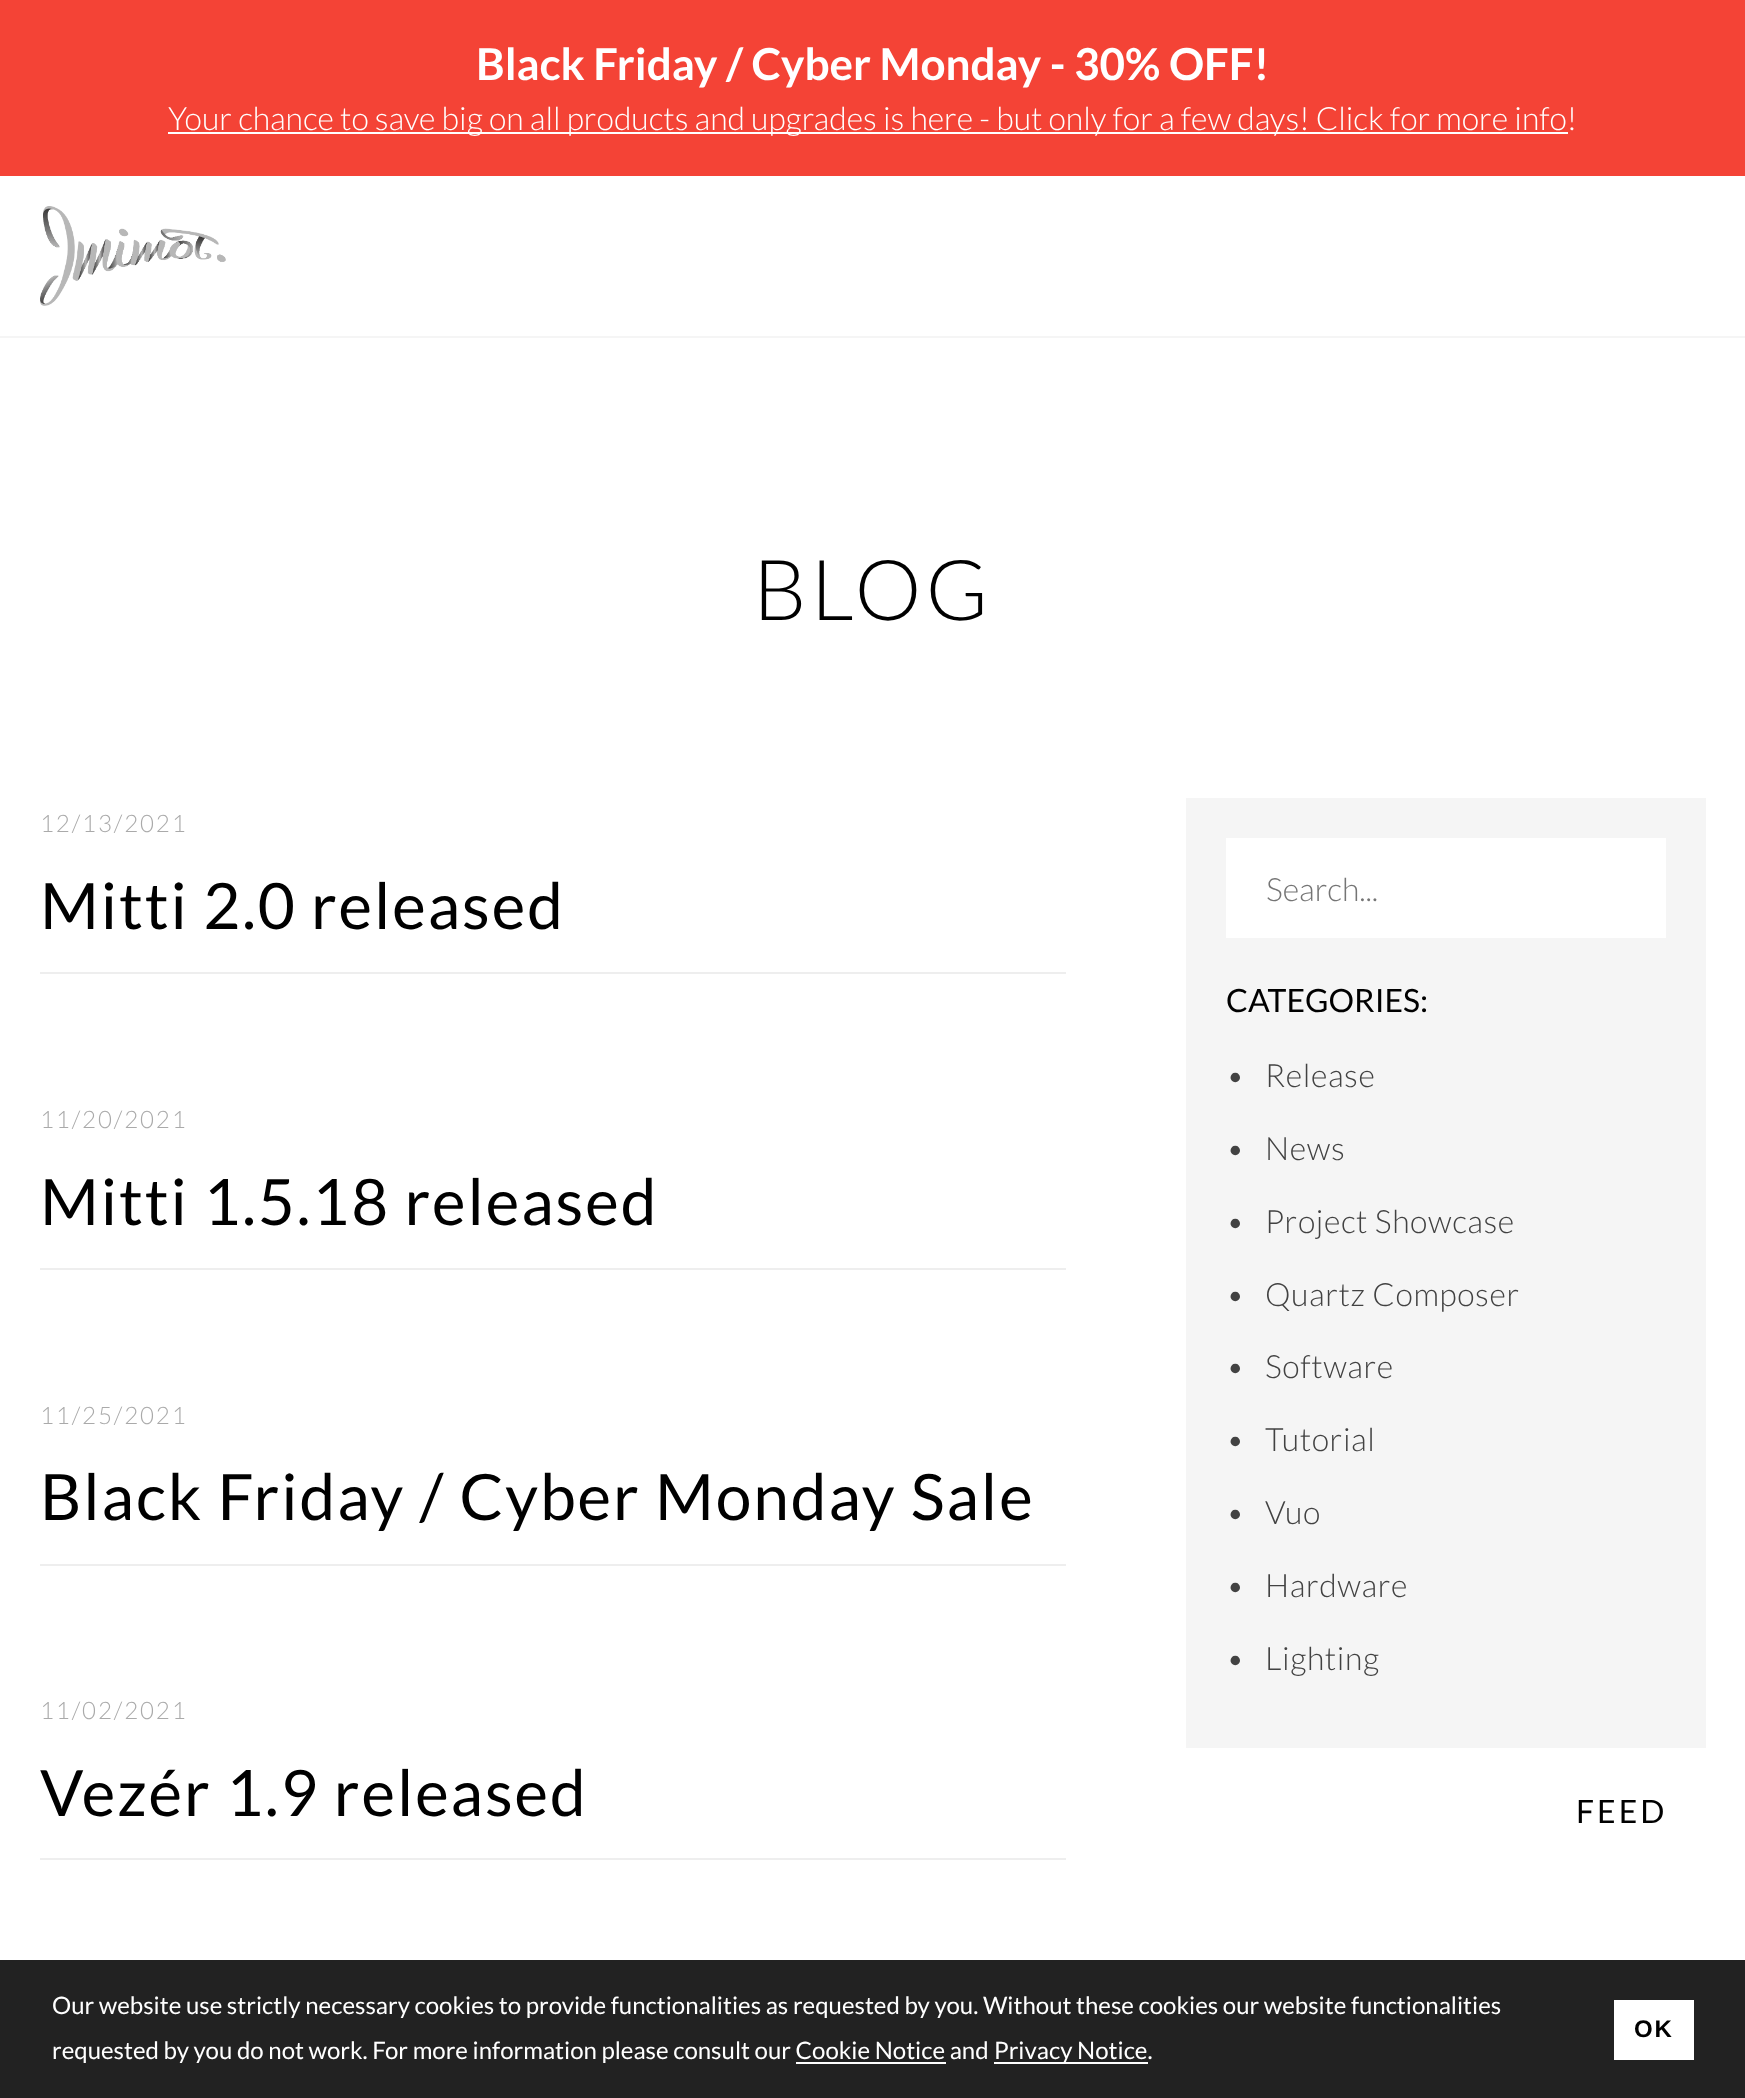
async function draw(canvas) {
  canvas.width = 1745
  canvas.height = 2098
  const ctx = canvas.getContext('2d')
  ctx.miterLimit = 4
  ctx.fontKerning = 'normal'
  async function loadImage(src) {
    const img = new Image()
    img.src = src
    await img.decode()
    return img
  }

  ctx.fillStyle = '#fff'
  ctx.fillRect(0, 0, 1745, 2098)
  ctx.fillStyle = '#f44336'
  ctx.fillRect(0, 0, 1745, 176)
  ctx.font = 'bold 44px Lato'
  ctx.fillStyle = '#fff'
  ctx.fillText('Black Friday / Cyber Monday - 30% OFF!', 476, 80)
  ctx.fillRect(168, 132, 1400, 2)
  ctx.font = '300 32px Lato'
  ctx.fillText('Your chance to save big on all products and upgrades is here - but only for a few days! Click for more info!', 168, 130)
  ctx.fillStyle = '#f5f5f5'
  ctx.fillRect(0, 336, 1745, 2)
  ctx.drawImage(await loadImage('image0.png'), 40, 206, 186, 100)
  ctx.letterSpacing = '4px'
  ctx.font = '300 84px Lato'
  ctx.fillStyle = '#000'
  ctx.fillText('BLOG', 753, 620)
  ctx.fillStyle = '#eee'
  ctx.fillRect(40, 972, 1026, 2)
  ctx.letterSpacing = '1.9px'
  ctx.font = '300 24px Lato'
  ctx.fillStyle = '#aaa'
  ctx.fillText('12/13/2021', 40, 832)
  ctx.font = '64px Lato'
  ctx.fillStyle = '#000'
  ctx.fillText('Mitti 2.0 released', 40, 929)
  ctx.fillStyle = '#eee'
  ctx.fillRect(40, 1268, 1026, 2)
  ctx.font = '300 24px Lato'
  ctx.fillStyle = '#aaa'
  ctx.fillText('11/20/2021', 40, 1128)
  ctx.font = '64px Lato'
  ctx.fillStyle = '#000'
  ctx.fillText('Mitti 1.5.18 released', 40, 1225)
  ctx.fillStyle = '#eee'
  ctx.fillRect(40, 1564, 1026, 2)
  ctx.font = '300 24px Lato'
  ctx.fillStyle = '#aaa'
  ctx.fillText('11/25/2021', 40, 1424)
  ctx.font = '64px Lato'
  ctx.fillStyle = '#000'
  ctx.fillText('Black Friday / Cyber Monday Sale', 40, 1520)
  ctx.fillStyle = '#eee'
  ctx.fillRect(40, 1858, 1026, 2)
  ctx.font = '300 24px Lato'
  ctx.fillStyle = '#aaa'
  ctx.fillText('11/02/2021', 40, 1719)
  ctx.font = '64px Lato'
  ctx.fillStyle = '#000'
  ctx.fillText('Vezér 1.9 released', 40, 1816)
  ctx.fillStyle = '#f5f5f5'
  ctx.fillRect(1186, 798, 520, 950)
  ctx.fillStyle = '#fff'
  ctx.fillRect(1226, 838, 440, 100)
  ctx.letterSpacing = '0px'
  ctx.font = '300 32px Lato'
  ctx.fillStyle = '#757575'
  ctx.fillText('Search...', 1266, 901)
  ctx.font = '32px Lato'
  ctx.fillStyle = '#000'
  ctx.fillText('CATEGORIES:', 1226, 1012)
  ctx.letterSpacing = '0.6px'
  ctx.font = '300 32px Lato'
  ctx.fillStyle = '#424242'
  ctx.fillText('•', 1226, 1087)
  ctx.fillText('Release', 1265, 1087)
  ctx.fillText('•', 1226, 1160)
  ctx.fillText('News', 1265, 1160)
  ctx.fillText('•', 1226, 1233)
  ctx.fillText('Project Showcase', 1265, 1233)
  ctx.fillText('•', 1226, 1306)
  ctx.fillText('Quartz Composer', 1265, 1306)
  ctx.fillText('•', 1226, 1378)
  ctx.fillText('Software', 1265, 1378)
  ctx.fillText('•', 1226, 1451)
  ctx.fillText('Tutorial', 1265, 1451)
  ctx.fillText('•', 1226, 1524)
  ctx.fillText('Vuo', 1265, 1524)
  ctx.fillText('•', 1226, 1597)
  ctx.fillText('Hardware', 1265, 1597)
  ctx.fillText('•', 1226, 1670)
  ctx.fillText('Lighting', 1265, 1670)
  ctx.letterSpacing = '3px'
  ctx.font = '32px Lato'
  ctx.fillStyle = '#000'
  ctx.fillText('FEED', 1576, 1823)
  ctx.fillStyle = '#222'
  ctx.fillRect(0, 1960, 1745, 138)
  ctx.letterSpacing = '0px'
  ctx.font = '24px Lato'
  ctx.fillStyle = '#fff'
  ctx.fillText('Our website use strictly necessary cookies to provide functionalities as requested by you. Without these cookies our website functionalities', 52, 2014)
  ctx.fillText('requested by you do not work. For more information please consult our Cookie Notice and', 52, 2059)
  ctx.fillRect(994, 2062, 154, 2)
  ctx.fillText('Privacy Notice.', 994, 2059)
  ctx.fillRect(796, 2062, 150, 2)
  ctx.fillRect(1614, 2000, 80, 60)
  ctx.letterSpacing = '1.9px'
  ctx.font = 'bold 24px Liberation Sans'
  ctx.fillStyle = '#000'
  ctx.fillText('OK', 1634, 2037)
}

draw(document.querySelector('canvas'))
